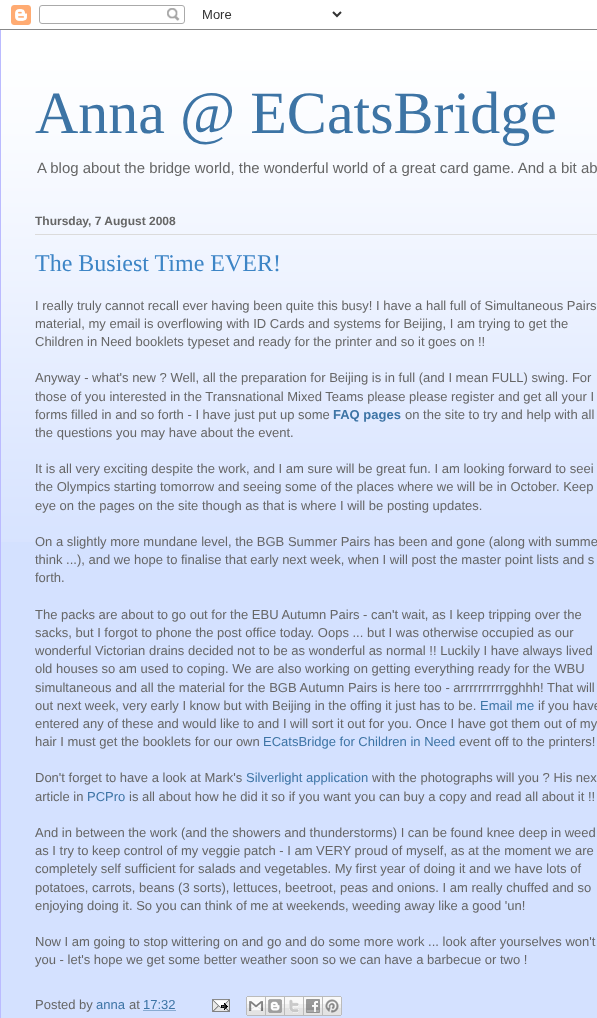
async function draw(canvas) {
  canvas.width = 597
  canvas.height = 1018
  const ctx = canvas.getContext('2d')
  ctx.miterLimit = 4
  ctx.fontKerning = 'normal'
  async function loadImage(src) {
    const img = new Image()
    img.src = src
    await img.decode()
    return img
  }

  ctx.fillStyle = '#fff'
  ctx.fillRect(0, 0, 597, 1018)
  ctx.drawImage(await loadImage('image0.png'), 0, 0, 597, 29)
  ctx.drawImage(await loadImage('image1.png'), 0, 5, 597, 25)
  ctx.fillStyle = '#d4e1ff'
  ctx.fillRect(1, 37, 596, 981)
  ctx.drawImage(await loadImage('image2.png'), 1, 30, 596, 512)
  ctx.fillStyle = '#bbf'
  ctx.fillRect(0, 30, 1, 988)
  ctx.font = '60px Liberation Serif'
  ctx.fillStyle = '#3d74a5'
  ctx.fillText('Anna @ ECatsBridge', 35, 133)
  ctx.font = '14.95px Liberation Sans'
  ctx.fillStyle = '#666'
  ctx.fillText('A blog about the bridge world, the wonderful world of a great card game. And a bit ab', 37, 173)
  ctx.fillStyle = '#dbdbdb'
  ctx.fillRect(35, 234, 562, 1)
  ctx.font = 'bold 12px Liberation Sans'
  ctx.fillStyle = '#666'
  ctx.fillText('Thursday, 7 August 2008', 35, 225)
  ctx.font = '24px Liberation Serif'
  ctx.fillStyle = '#3d85c6'
  ctx.fillText('The Busiest Time EVER!', 35, 271)
  ctx.font = '13px Liberation Sans'
  ctx.fillStyle = '#666'
  ctx.fillText('I really truly cannot recall ever having been quite this busy! I have a hall full of Simultaneous Pairs', 35, 310)
  ctx.fillText('material, my email is overflowing with ID Cards and systems for Beijing, I am trying to get the', 35, 328)
  ctx.fillText('Children in Need booklets typeset and ready for the printer and so it goes on !!', 35, 346)
  ctx.fillText('Anyway - what\'s new ? Well, all the preparation for Beijing is in full (and I mean FULL) swing. For', 35, 382)
  ctx.fillText('those of you interested in the Transnational Mixed Teams please please register and get all your I', 35, 401)
  ctx.fillText('forms filled in and so forth - I have just put up some', 35, 419)
  ctx.font = 'bold 13px Liberation Sans'
  ctx.fillStyle = '#3d74a5'
  ctx.fillText('FAQ pages', 333, 419)
  ctx.font = '13px Liberation Sans'
  ctx.fillStyle = '#666'
  ctx.fillText('on the site to try and help with all', 405, 419)
  ctx.fillText('the questions you may have about the event.', 35, 437)
  ctx.fillText('It is all very exciting despite the work, and I am sure will be great fun. I am looking forward to seei', 35, 473)
  ctx.fillText('the Olympics starting tomorrow and seeing some of the places where we will be in October. Keep', 35, 491)
  ctx.fillText('eye on the pages on the site though as that is where I will be posting updates.', 35, 510)
  ctx.fillText('On a slightly more mundane level, the BGB Summer Pairs has been and gone (along with summe', 35, 546)
  ctx.fillText('think ...), and we hope to finalise that early next week, when I will post the master point lists and s', 35, 564)
  ctx.fillText('forth.', 35, 582)
  ctx.fillText('The packs are about to go out for the EBU Autumn Pairs - can\'t wait, as I keep tripping over the', 35, 619)
  ctx.fillText('sacks, but I forgot to phone the post office today. Oops ... but I was otherwise occupied as our', 35, 637)
  ctx.fillText('wonderful Victorian drains decided not to be as wonderful as normal !! Luckily I have always lived', 35, 655)
  ctx.fillText('old houses so am used to coping. We are also working on getting everything ready for the WBU', 35, 673)
  ctx.fillText('simultaneous and all the material for the BGB Autumn Pairs is here too - arrrrrrrrrrgghhh! That will', 35, 692)
  ctx.fillText('out next week, very early I know but with Beijing in the offing it just has to be.', 35, 710)
  ctx.fillStyle = '#3d74a5'
  ctx.fillText('Email me', 480, 710)
  ctx.fillStyle = '#666'
  ctx.fillText('if you have', 538, 710)
  ctx.fillText('entered any of these and would like to and I will sort it out for you. Once I have got them out of my', 35, 728)
  ctx.fillText('hair I must get the booklets for our own', 35, 746)
  ctx.fillStyle = '#3d74a5'
  ctx.fillText('ECatsBridge for Children in Need', 263, 746)
  ctx.fillStyle = '#666'
  ctx.fillText('event off to the printers!', 459, 746)
  ctx.fillText('Don\'t forget to have a look at Mark\'s', 35, 782)
  ctx.fillStyle = '#3d74a5'
  ctx.fillText('Silverlight application', 246, 782)
  ctx.fillStyle = '#666'
  ctx.fillText('with the photographs will you ? His nex', 372, 782)
  ctx.fillText('article in', 35, 801)
  ctx.fillStyle = '#3d74a5'
  ctx.fillText('PCPro', 87, 801)
  ctx.fillStyle = '#666'
  ctx.fillText('is all about how he did it so if you want you can buy a copy and read all about it !!', 129, 801)
  ctx.fillText('And in between the work (and the showers and thunderstorms) I can be found knee deep in weed', 35, 837)
  ctx.fillText('as I try to keep control of my veggie patch - I am VERY proud of myself, as at the moment we are', 35, 855)
  ctx.fillText('completely self sufficient for salads and vegetables. My first year of doing it and we have lots of', 35, 873)
  ctx.fillText('potatoes, carrots, beans (3 sorts), lettuces, beetroot, peas and onions. I am really chuffed and so', 35, 892)
  ctx.fillText('enjoying doing it. So you can think of me at weekends, weeding away like a good \'un!', 35, 910)
  ctx.fillText('Now I am going to stop wittering on and go and do some more work ... look after yourselves won\'t', 35, 946)
  ctx.fillText('you - let\'s hope we get some better weather soon so we can have a barbecue or two !', 35, 964)
  ctx.fillText('Posted by', 35, 1009)
  ctx.fillStyle = '#3d74a5'
  ctx.fillText('anna', 96, 1009)
  ctx.fillStyle = '#666'
  ctx.fillText('at', 129, 1009)
  ctx.fillStyle = '#3d74a5'
  ctx.fillText('17:32', 143, 1009)
  ctx.beginPath()
  ctx.moveTo(143.5, 1010.5)
  ctx.lineTo(176, 1010.5)
  ctx.strokeStyle = '#3d74a5'
  ctx.setLineDash([1, 1])
  ctx.stroke()
  ctx.drawImage(await loadImage('image3.png'), 212, 999, 18, 13)
  ctx.drawImage(await loadImage('image4.png'), 246, 996, 20, 20)
  ctx.drawImage(await loadImage('image5.png'), 266, 996, 19, 20)
  ctx.drawImage(await loadImage('image6.png'), 285, 996, 19, 20)
  ctx.drawImage(await loadImage('image7.png'), 304, 996, 19, 20)
  ctx.drawImage(await loadImage('image8.png'), 323, 996, 19, 20)
}

draw(document.querySelector('canvas'))
